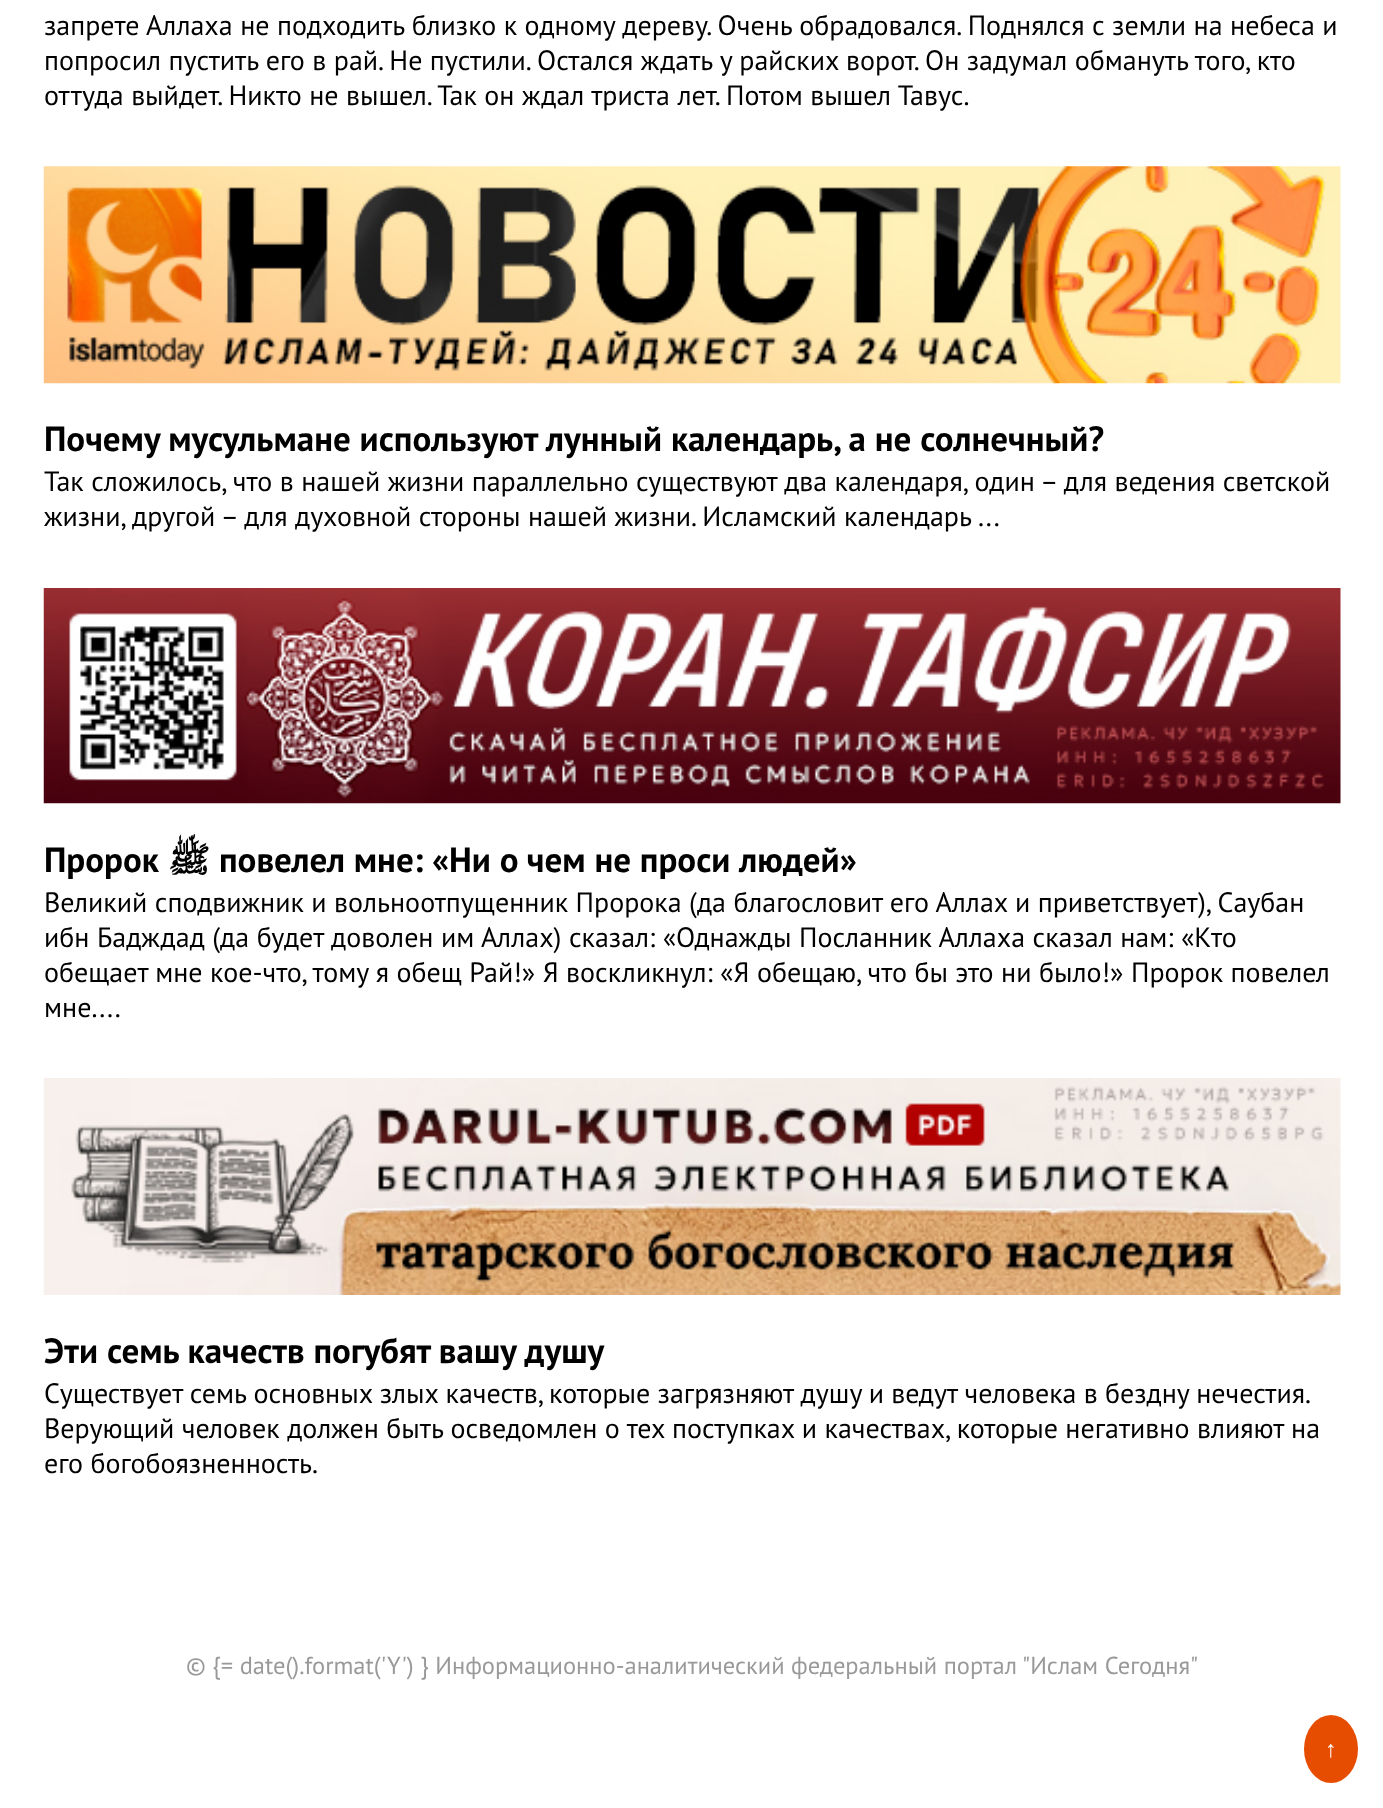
async function draw(canvas) {
  canvas.width = 1383
  canvas.height = 1808
  const ctx = canvas.getContext('2d')
  ctx.miterLimit = 4
  ctx.fontKerning = 'normal'
  async function loadImage(src) {
    const img = new Image()
    img.src = src
    await img.decode()
    return img
  }

  ctx.fillStyle = '#fff'
  ctx.fillRect(0, 0, 1383, 1808)
  ctx.font = '28px PT Sans'
  ctx.fillStyle = '#000'
  ctx.fillText('запрете Аллаха не подходить близко к одному дереву. Очень обрадовался. Поднялся с земли на небеса и', 44, 35)
  ctx.fillText('попросил пустить его в рай. Не пустили. Остался ждать у райских ворот. Он задумал обмануть того, кто', 44, 70)
  ctx.fillText('оттуда выйдет. Никто не вышел. Так он ждал триста лет. Потом вышел Тавус.', 44, 105)
  ctx.drawImage(await loadImage('image0.png'), 43, 166, 1298, 218)
  ctx.font = 'bold 35px PT Sans'
  ctx.fillText('Почему мусульмане используют лунный календарь, а не солнечный?', 44, 451)
  ctx.font = '28px PT Sans'
  ctx.fillText('Так сложилось, что в нашей жизни параллельно существуют два календаря, один – для ведения светской', 44, 491)
  ctx.fillText('жизни, другой – для духовной стороны нашей жизни. Исламский календарь ...', 44, 526)
  ctx.drawImage(await loadImage('image1.png'), 43, 588, 1298, 216)
  ctx.font = 'bold 35px PT Sans'
  ctx.fillText('Пророк', 44, 872)
  ctx.direction = 'rtl'
  ctx.font = 'bold 35px Lateef'
  ctx.fillText('ﷺ', 210, 872)
  ctx.direction = 'ltr'
  ctx.font = 'bold 35px PT Sans'
  ctx.fillText('повелел мне: «Ни о чем не проси людей»', 219, 872)
  ctx.font = '28px PT Sans'
  ctx.fillText('Великий сподвижник и вольноотпущенник Пророка (да благословит его Аллах и приветствует), Саубан', 44, 912)
  ctx.fillText('ибн Бадждад (да будет доволен им Аллах) сказал: «Однажды Посланник Аллаха сказал нам: «Кто', 44, 947)
  ctx.fillText('обещает мне кое-что, тому я обещ Рай!» Я воскликнул: «Я обещаю, что бы это ни было!» Пророк повелел', 44, 982)
  ctx.fillText('мне....', 44, 1017)
  ctx.drawImage(await loadImage('image2.png'), 43, 1078, 1298, 217)
  ctx.font = 'bold 35px PT Sans'
  ctx.fillText('Эти семь качеств погубят вашу душу', 44, 1363)
  ctx.wordSpacing = '-0.2px'
  ctx.font = '28px PT Sans'
  ctx.fillText('Существует семь основных злых качеств, которые загрязняют душу и ведут человека в бездну нечестия.', 44, 1403)
  ctx.wordSpacing = '0px'
  ctx.fillText('Верующий человек должен быть осведомлен о тех поступках и качествах, которые негативно влияют на', 44, 1438)
  ctx.fillText('его богобоязненность.', 44, 1473)
  ctx.font = '24.5px PT Sans'
  ctx.fillStyle = '#999'
  ctx.fillText('© {= date().format(\'Y\') } Информационно-аналитический федеральный портал "Ислам Сегодня"', 186, 1674)
  ctx.fillStyle = '#e74d01'
  ctx.beginPath()
  ctx.ellipse(1331, 1749, 27, 34, 0, 0, 2 * Math.PI)
  ctx.fill()
  ctx.font = '23px Liberation Sans'
  ctx.fillStyle = '#fff'
  ctx.fillText('↑', 1325, 1757)
}

draw(document.querySelector('canvas'))
